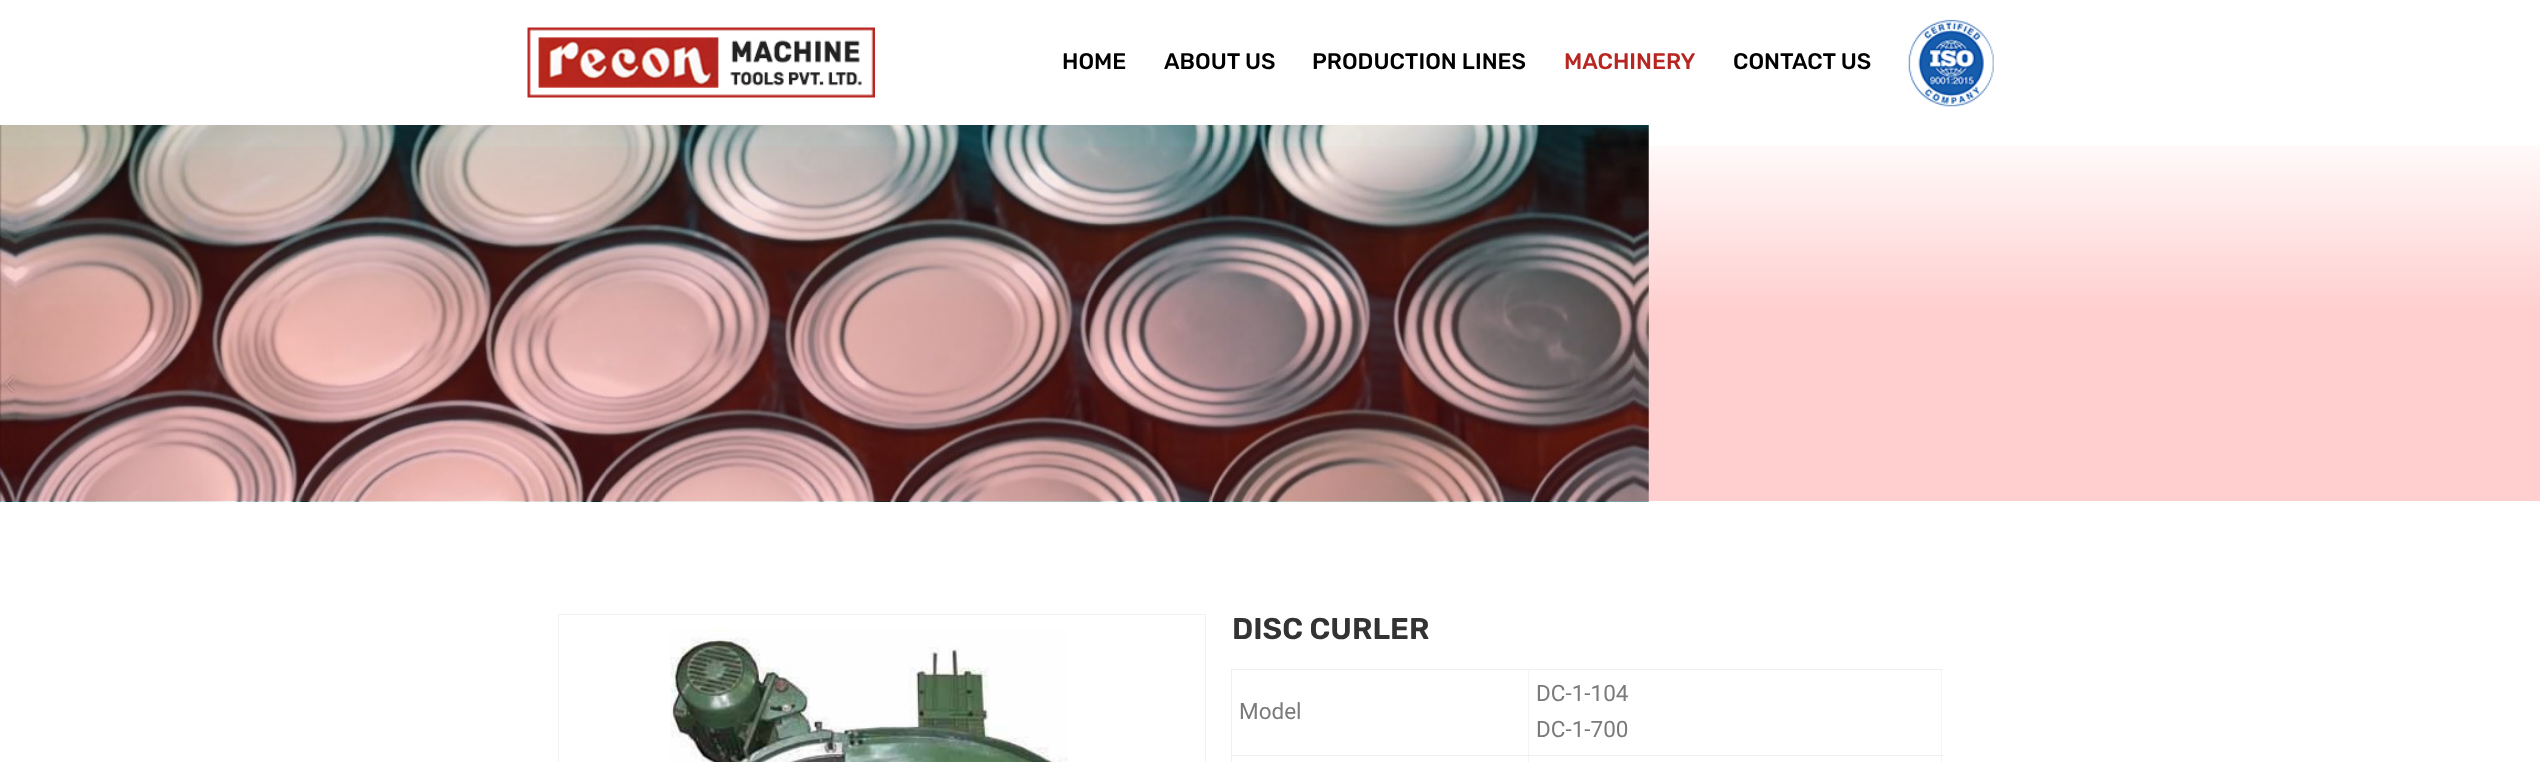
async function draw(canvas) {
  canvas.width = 2540
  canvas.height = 762
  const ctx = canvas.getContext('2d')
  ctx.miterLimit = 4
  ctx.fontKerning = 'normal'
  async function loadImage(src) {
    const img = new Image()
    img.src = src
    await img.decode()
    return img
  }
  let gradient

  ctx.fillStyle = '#fff'
  ctx.fillRect(0, 0, 2540, 762)
  ctx.drawImage(await loadImage('image0.png'), 527, 27, 348, 71)
  ctx.font = '500 22.5px Rubik'
  ctx.fillStyle = '#000'
  ctx.fillText('HOME', 1062, 69)
  ctx.fillText('ABOUT US', 1164, 69)
  ctx.fillText('PRODUCTION LINES', 1312, 69)
  ctx.fillStyle = '#b72621'
  ctx.fillText('MACHINERY', 1564, 69)
  ctx.fillStyle = '#000'
  ctx.fillText('CONTACT US', 1733, 69)
  ctx.drawImage(await loadImage('image1.png'), 1908, 19, 86, 88)
  ctx.drawImage(await loadImage('image2.png'), 0, 125, 1649, 377)
  gradient = ctx.createLinearGradient(1270, 501, 1270, 125)
  gradient.addColorStop(0.51, '#ff000030')
  gradient.addColorStop(1, '#ff000000')
  ctx.fillStyle = gradient
  ctx.fillRect(0, 146, 2540, 355)
  ctx.strokeStyle = '#f2f2f2'
  ctx.strokeRect(558.5, 614.5, 647, 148)
  ctx.drawImage(await loadImage('image3.png'), 670, 628, 398, 134)
  ctx.font = '600 30px Rubik'
  ctx.fillStyle = '#333'
  ctx.fillText('DISC CURLER', 1232, 639)
  ctx.fillStyle = '#efefef'
  ctx.fillRect(1231, 755, 1, 7)
  ctx.fillStyle = '#f4f4f4'
  ctx.fillRect(1528, 755, 1, 7)
  ctx.fillStyle = '#efefef'
  ctx.fillRect(1231, 669, 712, 1)
  ctx.fillStyle = '#f4f4f4'
  ctx.fillRect(1941, 669, 1, 93)
  ctx.fillStyle = '#efefef'
  ctx.fillRect(1231, 669, 1, 87)
  ctx.fillRect(1528, 755, 415, 1)
  ctx.fillStyle = '#f4f4f4'
  ctx.fillRect(1528, 669, 1, 87)
  ctx.fillStyle = '#efefef'
  ctx.fillRect(1231, 755, 298, 1)
  ctx.font = '22.5px Roboto'
  ctx.fillStyle = '#7a7a7a'
  ctx.fillText('Model', 1239, 719)
  ctx.fillText('DC-1-104', 1536, 701)
  ctx.fillText('DC-1-700', 1536, 737)
}

draw(document.querySelector('canvas'))
